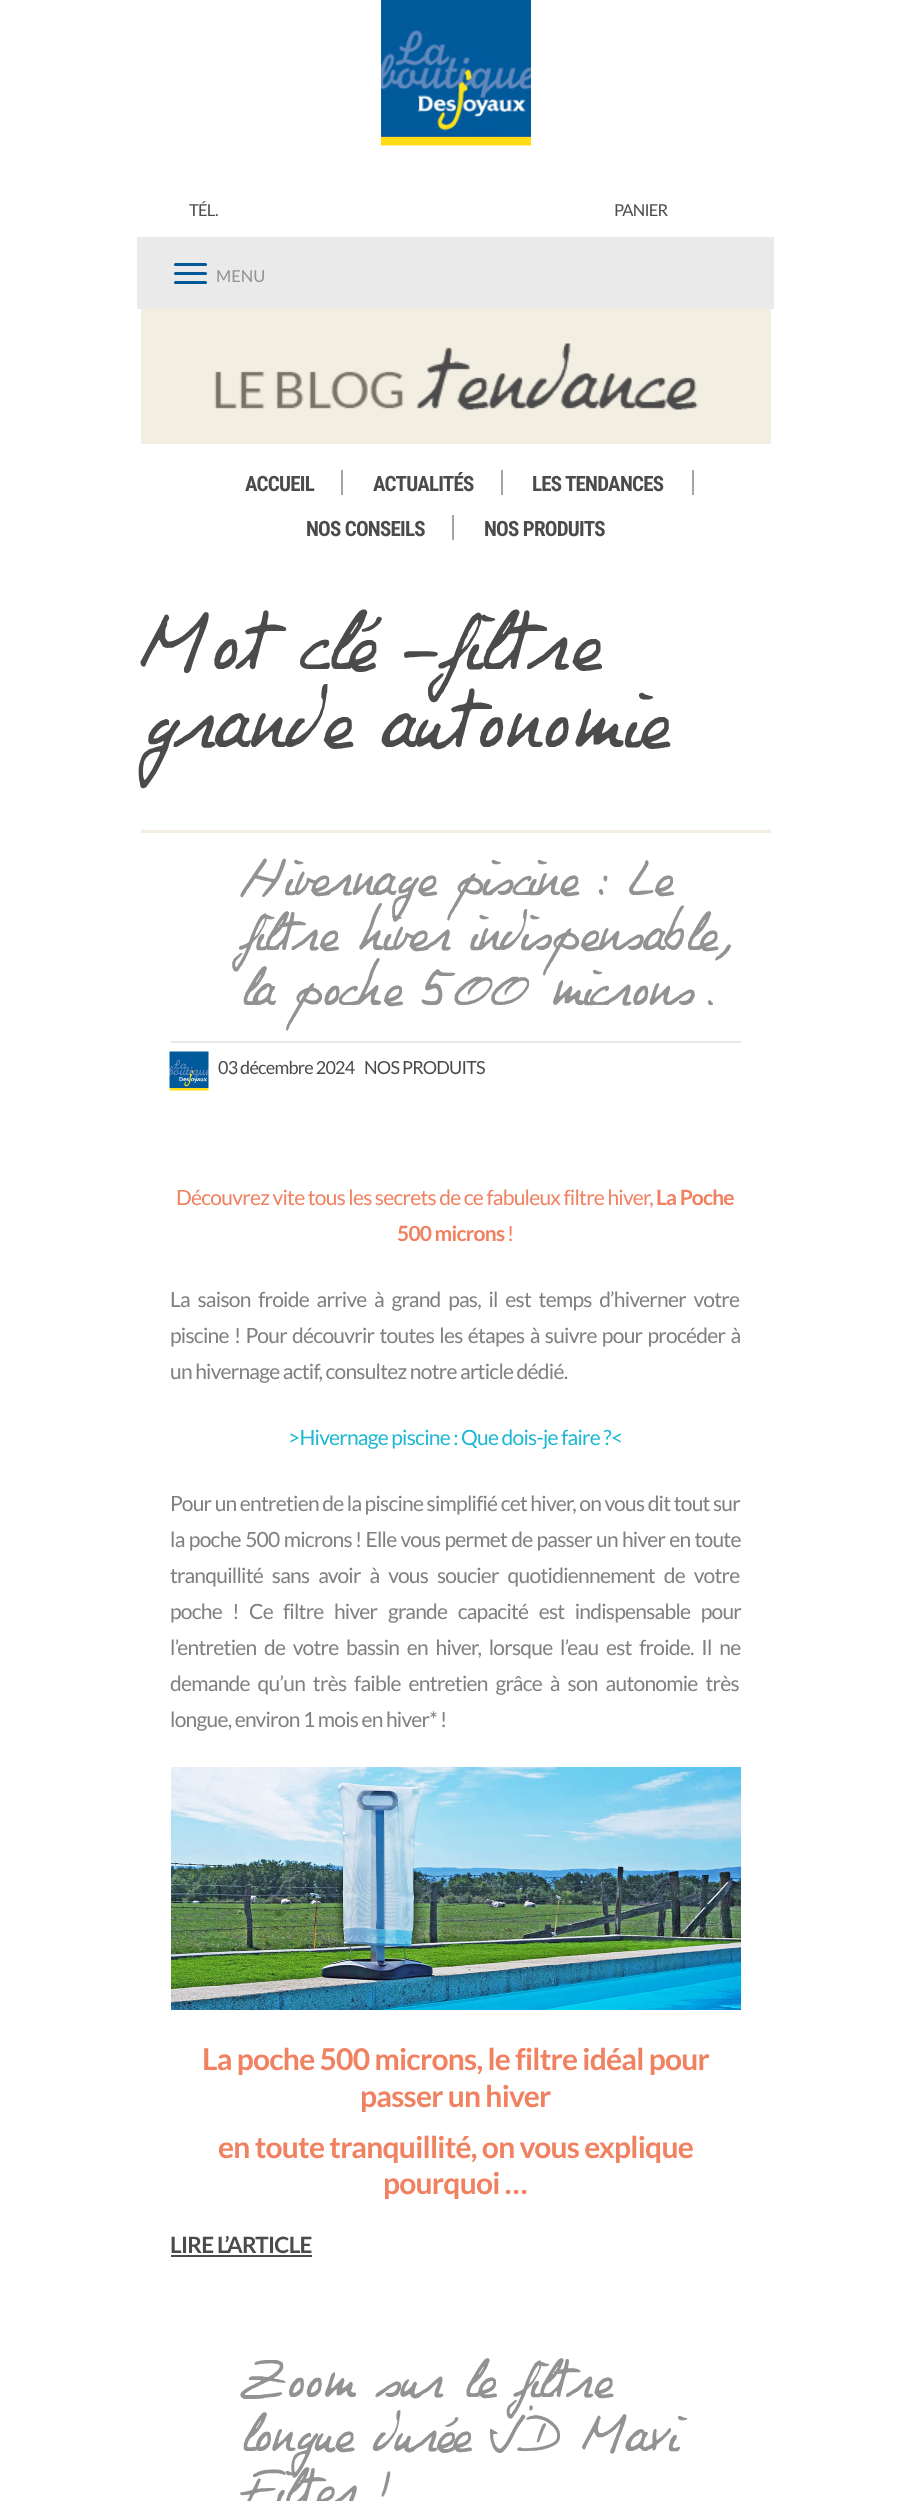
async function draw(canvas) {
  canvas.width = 910
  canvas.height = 2501
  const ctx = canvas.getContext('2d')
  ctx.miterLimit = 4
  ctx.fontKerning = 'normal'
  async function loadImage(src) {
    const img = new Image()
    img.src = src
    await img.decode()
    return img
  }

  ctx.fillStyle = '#fff'
  ctx.fillRect(0, 0, 910, 2501)
  ctx.drawImage(await loadImage('image0.png'), 381, 0, 150, 146)
  ctx.letterSpacing = '-0.75px'
  ctx.font = '16.5px Lato'
  ctx.fillStyle = '#4b4b4b'
  ctx.fillText('TÉL.', 189, 216)
  ctx.fillText('PANIER', 614, 216)
  ctx.fillStyle = '#eaeaea'
  ctx.fillRect(137, 237, 637, 72)
  ctx.fillStyle = '#005898'
  ctx.beginPath()
  ctx.roundRect(174, 263, 33, 3, 1.5)
  ctx.fill()
  ctx.beginPath()
  ctx.roundRect(174, 272, 33, 3, 1.5)
  ctx.fill()
  ctx.letterSpacing = '0px'
  ctx.fillStyle = '#929292'
  ctx.fillText('MENU', 216, 282)
  ctx.fillStyle = '#005898'
  ctx.beginPath()
  ctx.roundRect(174, 281, 33, 3, 1.5)
  ctx.fill()
  ctx.fillStyle = '#f2eee2'
  ctx.fillRect(141, 309, 630, 135)
  ctx.drawImage(await loadImage('image1.png'), 214, 343, 484, 67)
  ctx.letterSpacing = '-0.75px'
  ctx.font = 'bold 21px Roboto Condensed'
  ctx.fillStyle = '#4b4b4b'
  ctx.fillText('ACCUEIL', 245, 491)
  ctx.fillStyle = '#a5a5a5'
  ctx.fillRect(341, 470, 2, 25)
  ctx.fillStyle = '#4b4b4b'
  ctx.fillText('ACTUALITÉS', 373, 491)
  ctx.fillStyle = '#a5a5a5'
  ctx.fillRect(501, 470, 2, 25)
  ctx.fillStyle = '#4b4b4b'
  ctx.fillText('LES TENDANCES', 532, 491)
  ctx.fillStyle = '#a5a5a5'
  ctx.fillRect(692, 470, 2, 25)
  ctx.fillStyle = '#4b4b4b'
  ctx.fillText('NOS CONSEILS', 306, 536)
  ctx.fillStyle = '#a5a5a5'
  ctx.fillRect(452, 515, 2, 25)
  ctx.fillStyle = '#4b4b4b'
  ctx.fillText('NOS PRODUITS', 484, 536)
  ctx.font = '64.75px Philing'
  ctx.fillText('Mot clé -filtre', 140, 669)
  ctx.fillText('grande autonomie', 140, 747)
  ctx.fillStyle = '#f2eee2'
  ctx.fillRect(141, 830, 630, 3)
  ctx.letterSpacing = '-1.7px'
  ctx.wordSpacing = '2px'
  ctx.font = '42px Philing'
  ctx.fillStyle = '#929292'
  ctx.fillText('Hivernage piscine : Le', 240, 895)
  ctx.fillText('filtre hiver indispensable,', 240, 950)
  ctx.fillText('la poche 500 microns.', 240, 1005)
  ctx.fillStyle = '#e8e8e8'
  ctx.fillRect(171, 1041, 570, 2)
  ctx.drawImage(await loadImage('image2.png'), 169, 1051, 40, 40)
  ctx.letterSpacing = '-0.75px'
  ctx.wordSpacing = '0px'
  ctx.font = '18px Lato'
  ctx.fillStyle = '#4b4b4b'
  ctx.fillText('03 décembre 2024', 218, 1074)
  ctx.fillText('NOS PRODUITS', 364, 1074)
  ctx.font = '21px Lato'
  ctx.fillStyle = '#f08262'
  ctx.fillText('Découvrez vite tous les secrets de ce fabuleux filtre hiver,', 176, 1205)
  ctx.font = 'bold 21px Lato'
  ctx.fillText('La Poche', 656, 1205)
  ctx.fillText('500 microns', 397, 1241)
  ctx.font = '21px Lato'
  ctx.fillText('!', 507, 1241)
  ctx.wordSpacing = '4.25px'
  ctx.fillStyle = '#808080'
  ctx.fillText('La saison froide arrive à grand pas, il est temps d’hiverner votre', 170, 1307)
  ctx.wordSpacing = '1.9px'
  ctx.fillText('piscine ! Pour découvrir toutes les étapes à suivre pour procéder à', 170, 1343)
  ctx.wordSpacing = '0px'
  ctx.fillText('un hivernage actif, consultez notre article dédié.', 170, 1379)
  ctx.fillStyle = '#1fb8d3'
  ctx.fillText('>Hivernage piscine : Que dois-je faire ?<', 288, 1445)
  ctx.fillStyle = '#808080'
  ctx.fillText('Pour un entretien de la piscine simplifié cet hiver, on vous dit tout sur', 170, 1511)
  ctx.wordSpacing = '1px'
  ctx.fillText('la poche 500 microns', 170, 1547)
  ctx.wordSpacing = '0.75px'
  ctx.fillText('! Elle vous permet de passer un hiver en toute', 355, 1547)
  ctx.wordSpacing = '5.5px'
  ctx.fillText('tranquillité sans avoir à vous soucier quotidiennement de votre', 170, 1583)
  ctx.wordSpacing = '7px'
  ctx.fillText('poche ! Ce', 170, 1619)
  ctx.fillText('filtre hiver', 283, 1619)
  ctx.fillText('grande capacité est indispensable pour', 388, 1619)
  ctx.wordSpacing = '4.25px'
  ctx.fillText('l’entretien de votre bassin en hiver, lorsque l’eau est froide. Il ne', 170, 1655)
  ctx.wordSpacing = '4.5px'
  ctx.fillText('demande qu’un très faible entretien grâce à son autonomie très', 170, 1691)
  ctx.wordSpacing = '0px'
  ctx.fillText('longue, environ 1 mois en hiver* !', 170, 1727)
  ctx.drawImage(await loadImage('image3.png'), 171, 1767, 570, 243)
  ctx.font = 'bold 30px Lato'
  ctx.fillStyle = '#f08262'
  ctx.fillText('La poche 500 microns, le filtre idéal pour', 202, 2070)
  ctx.fillText('passer un hiver', 360, 2107)
  ctx.fillText('en toute tranquillité, on vous explique', 218, 2158)
  ctx.fillText('pourquoi …', 383, 2194)
  ctx.font = 'bold 22.5px Lato'
  ctx.fillStyle = '#4b4b4b'
  ctx.fillText('LIRE L’ARTICLE', 170, 2253)
  ctx.fillRect(171, 2255, 141, 2)
  ctx.letterSpacing = '-1.7px'
  ctx.wordSpacing = '2px'
  ctx.font = '42px Philing'
  ctx.fillStyle = '#929292'
  ctx.fillText('Zoom sur le filtre', 240, 2397)
  ctx.fillText('longue durée JD Maxi', 240, 2451)
  ctx.fillText('Filter !', 240, 2506)
}

draw(document.querySelector('canvas'))
